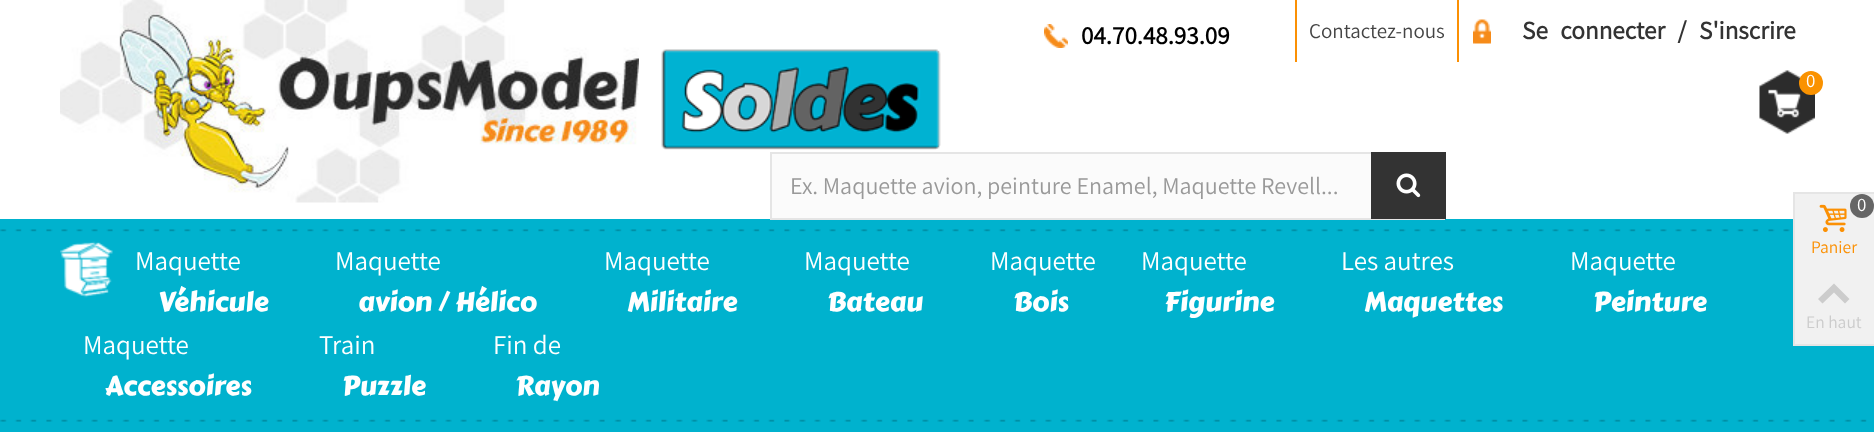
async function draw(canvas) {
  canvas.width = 1874
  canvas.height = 432
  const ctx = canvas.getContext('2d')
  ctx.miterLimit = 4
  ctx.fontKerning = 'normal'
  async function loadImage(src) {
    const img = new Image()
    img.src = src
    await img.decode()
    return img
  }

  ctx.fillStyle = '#fff'
  ctx.fillRect(0, 0, 1874, 432)
  ctx.drawImage(await loadImage('image0.png'), 60, 0, 579, 203)
  ctx.drawImage(await loadImage('image1.png'), 1044, 24, 24, 24)
  ctx.font = 'bold 25.25px Assistant'
  ctx.fillStyle = '#000'
  ctx.fillText('04.70.48.93.09', 1081, 44)
  ctx.fillStyle = '#fb9004'
  ctx.fillRect(1457, 0, 2, 62)
  ctx.fillRect(1295, 0, 2, 62)
  ctx.font = '21px Assistant'
  ctx.fillStyle = '#444'
  ctx.fillText('Contactez-nous', 1309, 38)
  ctx.drawImage(await loadImage('image2.png'), 1473, 19, 18, 25)
  ctx.wordSpacing = '7.5px'
  ctx.font = 'bold 25.25px Assistant'
  ctx.fillStyle = '#333'
  ctx.fillText('Se connecter / S\'inscrire', 1522, 39)
  ctx.drawImage(await loadImage('image3.png'), 661, 49, 280, 101)
  ctx.drawImage(await loadImage('image4.png'), 1759, 70, 56, 64)
  ctx.fillStyle = '#fa9200'
  ctx.beginPath()
  ctx.arc(1811, 83, 12, 0, 2 * Math.PI)
  ctx.fill()
  ctx.wordSpacing = '0px'
  ctx.font = '19px Assistant'
  ctx.fillStyle = '#fff'
  ctx.fillText('0', 1806, 87)
  ctx.fillStyle = '#fbfbfb'
  ctx.fillRect(772, 154, 599, 64)
  ctx.fillStyle = '#e5e5e5'
  ctx.fillRect(770, 152, 601, 2)
  ctx.fillStyle = '#00b2ce'
  ctx.fillRect(0, 219, 1874, 213)
  ctx.fillStyle = '#e5e5e5'
  ctx.fillRect(770, 218, 675, 2)
  ctx.fillRect(770, 152, 2, 67)
  ctx.font = '24px Assistant'
  ctx.fillStyle = '#999'
  ctx.fillText('Ex. Maquette avion, peinture Enamel, Maquette Revell...', 790, 194)
  ctx.fillStyle = '#333'
  ctx.fillRect(1371, 152, 75, 67)
  ctx.drawImage(await loadImage('image5.png'), 1396, 173, 25, 25)
  ctx.drawImage(await loadImage('image6.png'), 0, 229, 1790, 3)
  ctx.drawImage(await loadImage('image7.png'), 60, 241, 53, 57)
  ctx.font = '27px Assistant'
  ctx.fillStyle = '#fff'
  ctx.fillText('Maquette', 135, 270)
  ctx.font = '27px Carter One'
  ctx.fillText('Véhicule', 158, 311)
  ctx.font = '27px Assistant'
  ctx.fillText('Maquette', 335, 270)
  ctx.font = '27px Carter One'
  ctx.fillText('avion / Hélico', 358, 311)
  ctx.font = '27px Assistant'
  ctx.fillText('Maquette', 604, 270)
  ctx.font = '27px Carter One'
  ctx.fillText('Militaire', 627, 311)
  ctx.font = '27px Assistant'
  ctx.fillText('Maquette', 804, 270)
  ctx.font = '27px Carter One'
  ctx.fillText('Bateau', 827, 311)
  ctx.font = '27px Assistant'
  ctx.fillText('Maquette', 990, 270)
  ctx.font = '27px Carter One'
  ctx.fillText('Bois', 1013, 311)
  ctx.font = '27px Assistant'
  ctx.fillText('Maquette', 1141, 270)
  ctx.font = '27px Carter One'
  ctx.fillText('Figurine', 1164, 311)
  ctx.font = '27px Assistant'
  ctx.fillText('Les autres', 1341, 270)
  ctx.font = '27px Carter One'
  ctx.fillText('Maquettes', 1364, 311)
  ctx.font = '27px Assistant'
  ctx.fillText('Maquette', 1570, 270)
  ctx.font = '27px Carter One'
  ctx.fillText('Peinture', 1593, 311)
  ctx.font = '27px Assistant'
  ctx.fillText('Maquette', 83, 354)
  ctx.font = '27px Carter One'
  ctx.fillText('Accessoires', 105, 395)
  ctx.font = '27px Assistant'
  ctx.fillText('Train', 319, 354)
  ctx.font = '27px Carter One'
  ctx.fillText('Puzzle', 342, 395)
  ctx.font = '27px Assistant'
  ctx.fillText('Fin de', 493, 354)
  ctx.font = '27px Carter One'
  ctx.fillText('Rayon', 515, 395)
  ctx.drawImage(await loadImage('image8.png'), 0, 419, 1867, 3)
  ctx.fillStyle = '#f1f1f1'
  ctx.fillRect(1795, 194, 79, 150)
  ctx.fillStyle = '#e5e5e5'
  ctx.fillRect(1793, 192, 81, 2)
  ctx.fillRect(1793, 344, 81, 2)
  ctx.fillRect(1793, 194, 2, 150)
  ctx.drawImage(await loadImage('image9.png'), 1819, 204, 28, 28)
  ctx.fillStyle = '#666'
  ctx.beginPath()
  ctx.arc(1862, 206, 12, 0, 2 * Math.PI)
  ctx.fill()
  ctx.font = '19px Assistant'
  ctx.fillStyle = '#fff'
  ctx.fillText('0', 1857, 211)
  ctx.font = '17.5px Assistant'
  ctx.fillStyle = '#fb9004'
  ctx.fillText('Panier', 1811, 253)
  ctx.fillStyle = '#ccc'
  ctx.beginPath()
  ctx.moveTo(1818, 299)
  ctx.lineTo(1834, 283.5)
  ctx.lineTo(1849.5, 299)
  ctx.lineTo(1845, 303.5)
  ctx.lineTo(1834, 292.5)
  ctx.lineTo(1822.5, 303.5)
  ctx.closePath()
  ctx.fill()
  ctx.fillText('En haut', 1806, 328)
}

draw(document.querySelector('canvas'))
